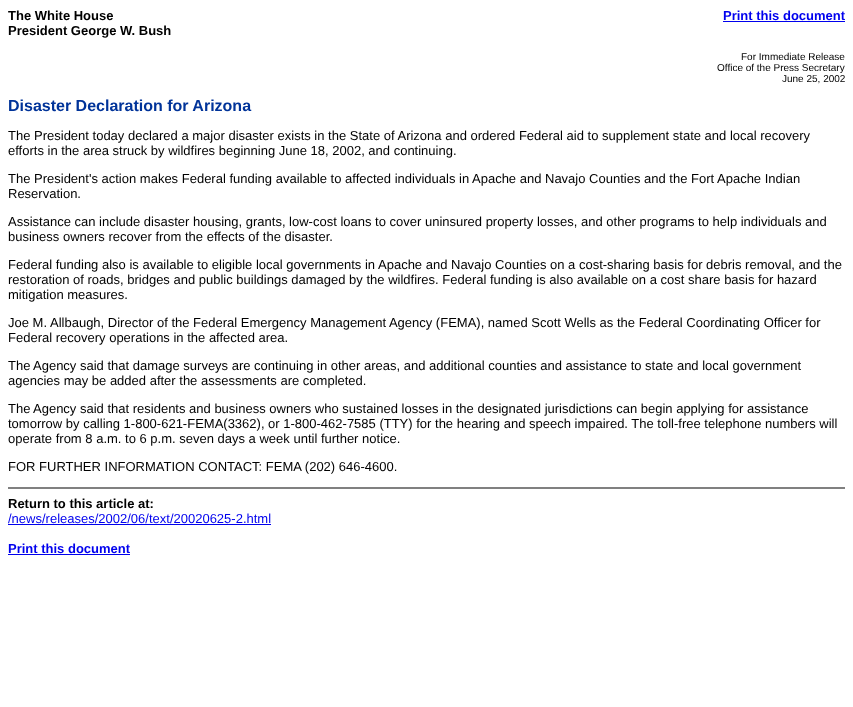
async function draw(canvas) {
  canvas.width = 853
  canvas.height = 707
  const ctx = canvas.getContext('2d')
  ctx.miterLimit = 4
  ctx.fontKerning = 'normal'

  ctx.fillStyle = '#fff'
  ctx.fillRect(0, 0, 853, 707)
  ctx.font = 'bold 13px Liberation Sans'
  ctx.fillStyle = '#000'
  ctx.fillText('The White House', 8, 20)
  ctx.fillText('President George W. Bush', 8, 35)
  ctx.fillStyle = '#00e'
  ctx.fillText('Print this document', 723, 20)
  ctx.fillRect(723, 21, 122, 1)
  ctx.font = '10px Liberation Sans'
  ctx.fillStyle = '#000'
  ctx.fillText('For Immediate Release', 741, 60)
  ctx.fillText('Office of the Press Secretary', 717, 71)
  ctx.fillText('June 25, 2002', 782, 82)
  ctx.font = 'bold 16px Liberation Sans'
  ctx.fillStyle = '#039'
  ctx.fillText('Disaster Declaration for Arizona', 8, 111)
  ctx.font = '13px Liberation Sans'
  ctx.fillStyle = '#000'
  ctx.fillText('The President today declared a major disaster exists in the State of Arizona and ordered Federal aid to supplement state and local recovery', 8, 140)
  ctx.fillText('efforts in the area struck by wildfires beginning June 18, 2002, and continuing.', 8, 155)
  ctx.fillText('The President\'s action makes Federal funding available to affected individuals in', 8, 183)
  ctx.fillText('Apache and Navajo Counties and the Fort Apache Indian', 472, 183)
  ctx.fillText('Reservation.', 8, 198)
  ctx.fillText('Assistance can include disaster housing, grants, low-cost loans to cover uninsured property losses, and other programs to help individuals and', 8, 226)
  ctx.fillText('business owners recover from the effects of the disaster.', 8, 241)
  ctx.fillText('Federal funding also is available to eligible local governments in Apache and Navajo Counties on a cost-sharing basis for debris removal, and the', 8, 269)
  ctx.fillText('restoration of roads, bridges and public buildings damaged by the wildfires. Federal funding is also available on a cost share basis for hazard', 8, 284)
  ctx.fillText('mitigation measures.', 8, 299)
  ctx.fillText('Joe M.', 8, 327)
  ctx.fillText('Allbaugh, Director of the Federal Emergency Management Agency (FEMA), named Scott Wells as the Federal Coordinating Officer for', 50, 327)
  ctx.fillText('Federal recovery operations in the affected area.', 8, 342)
  ctx.fillText('The', 8, 370)
  ctx.fillText('Agency said that damage surveys are continuing in other areas, and additional counties and assistance to state and local government', 33, 370)
  ctx.fillText('agencies may be added after the assessments are completed.', 8, 385)
  ctx.fillText('The', 8, 413)
  ctx.fillText('Agency said that residents and business owners who sustained losses in the designated jurisdictions can begin applying for assistance', 33, 413)
  ctx.fillText('tomorrow by calling 1-800-621-FEMA(3362), or 1-800-462-7585 (TTY) for the hearing and speech impaired. The toll-free telephone numbers will', 8, 428)
  ctx.fillText('operate from 8 a.m. to 6 p.m. seven days a week until further notice.', 8, 443)
  ctx.fillText('FOR FURTHER INFORMATION CONTACT: FEMA (202) 646-4600.', 8, 471)
  ctx.fillStyle = '#808080'
  ctx.fillRect(8, 487, 837, 2)
  ctx.font = 'bold 13px Liberation Sans'
  ctx.fillStyle = '#000'
  ctx.fillText('Return to this article at:', 8, 508)
  ctx.font = '13px Liberation Sans'
  ctx.fillStyle = '#00e'
  ctx.fillText('/news/releases/2002/06/text/20020625-2.html', 8, 523)
  ctx.fillRect(8, 524, 263, 1)
  ctx.font = 'bold 13px Liberation Sans'
  ctx.fillText('Print this document', 8, 553)
  ctx.fillRect(8, 554, 122, 1)
}

draw(document.querySelector('canvas'))
